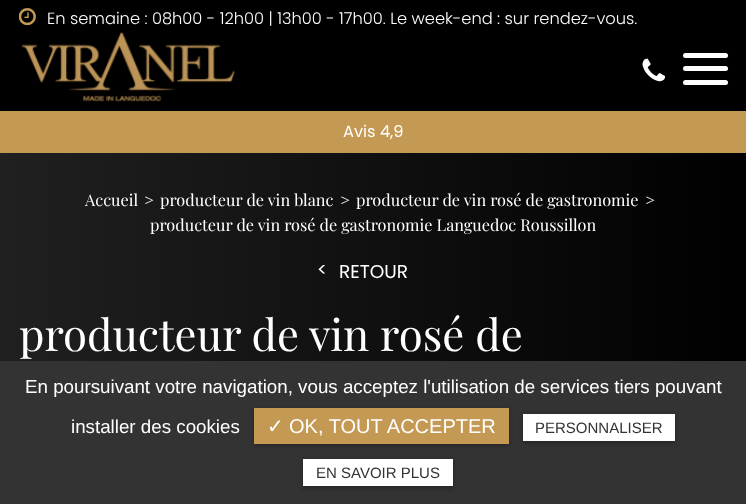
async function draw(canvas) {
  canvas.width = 746
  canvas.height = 504
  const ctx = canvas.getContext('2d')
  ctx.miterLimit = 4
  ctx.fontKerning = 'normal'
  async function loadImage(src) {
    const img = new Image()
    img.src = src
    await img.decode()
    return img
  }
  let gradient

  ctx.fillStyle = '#fff'
  ctx.fillRect(0, 0, 746, 504)
  ctx.fillStyle = '#000'
  ctx.fillRect(0, 0, 746, 111)
  ctx.drawImage(await loadImage('image0.png'), 19, 8, 17, 18)
  ctx.font = '300 16.25px Poppins'
  ctx.fillStyle = '#fff'
  ctx.fillText('En semaine : 08h00 - 12h00 | 13h00 - 17h00. Le week-end : sur rendez-vous.', 47, 24)
  ctx.drawImage(await loadImage('image1.png'), 22, 32, 214, 70)
  ctx.drawImage(await loadImage('image2.png'), 642, 58, 24, 24)
  ctx.beginPath()
  ctx.roundRect(683, 53, 45, 5, 2.5)
  ctx.fill()
  ctx.beginPath()
  ctx.roundRect(683, 66, 45, 5, 2.5)
  ctx.fill()
  ctx.beginPath()
  ctx.roundRect(683, 80, 45, 5, 2.5)
  ctx.fill()
  ctx.fillStyle = '#c49953'
  ctx.fillRect(0, 111, 746, 42)
  ctx.font = '16.25px Poppins'
  ctx.fillStyle = '#fff'
  ctx.fillText('Avis 4,9', 343, 137)
  gradient = ctx.createLinearGradient(0, 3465, 746, 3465)
  gradient.addColorStop(0, '#202020')
  gradient.addColorStop(1, '#000')
  ctx.fillStyle = gradient
  ctx.fillRect(0, 153, 746, 208)
  ctx.font = '16.25px Playfair Display'
  ctx.fillStyle = '#fff'
  ctx.fillText('Accueil', 85, 206)
  ctx.fillText('>', 144, 206)
  ctx.fillText('producteur de vin blanc', 160, 206)
  ctx.fillText('>', 340, 206)
  ctx.fillText('producteur de vin rosé de gastronomie', 356, 206)
  ctx.fillText('>', 645, 206)
  ctx.fillText('producteur de vin rosé de gastronomie Languedoc Roussillon', 150, 231)
  ctx.font = '18.5px Poppins'
  ctx.fillText('<', 317, 276)
  ctx.fillText('RETOUR', 339, 278)
  ctx.font = '43.75px Playfair Display'
  ctx.fillText('producteur de vin rosé de', 19, 351)
  ctx.fillStyle = '#333'
  ctx.fillRect(0, 361, 746, 143)
  ctx.font = '18.75px Liberation Sans'
  ctx.fillStyle = '#fff'
  ctx.fillText('En poursuivant votre navigation, vous acceptez l\'utilisation de services tiers pouvant', 25, 393)
  ctx.fillText('installer des cookies', 71, 433)
  ctx.fillStyle = '#0000004d'
  ctx.filter = 'blur(2px)'
  ctx.beginPath()
  ctx.rect(254, 409, 255, 36)
  ctx.fill()
  ctx.filter = 'none'
  ctx.fillStyle = '#c49953'
  ctx.fillRect(254, 408, 255, 36)
  ctx.font = '20px DejaVu Sans'
  ctx.fillStyle = '#fff'
  ctx.fillText('✓', 267, 433)
  ctx.font = '20px Liberation Sans'
  ctx.fillText('OK, TOUT ACCEPTER', 289, 433)
  ctx.fillStyle = '#0000004d'
  ctx.filter = 'blur(2px)'
  ctx.beginPath()
  ctx.rect(523, 415, 152, 28)
  ctx.fill()
  ctx.filter = 'none'
  ctx.fillStyle = '#fff'
  ctx.fillRect(523, 414, 152, 27)
  ctx.font = '15px Liberation Sans'
  ctx.fillStyle = '#333'
  ctx.fillText('PERSONNALISER', 535, 433)
  ctx.fillStyle = '#0000004d'
  ctx.filter = 'blur(2px)'
  ctx.beginPath()
  ctx.rect(303, 460, 150, 28)
  ctx.fill()
  ctx.filter = 'none'
  ctx.fillStyle = '#fff'
  ctx.fillRect(303, 459, 150, 27)
  ctx.fillStyle = '#333'
  ctx.fillText('EN SAVOIR PLUS', 316, 478)
}

draw(document.querySelector('canvas'))
